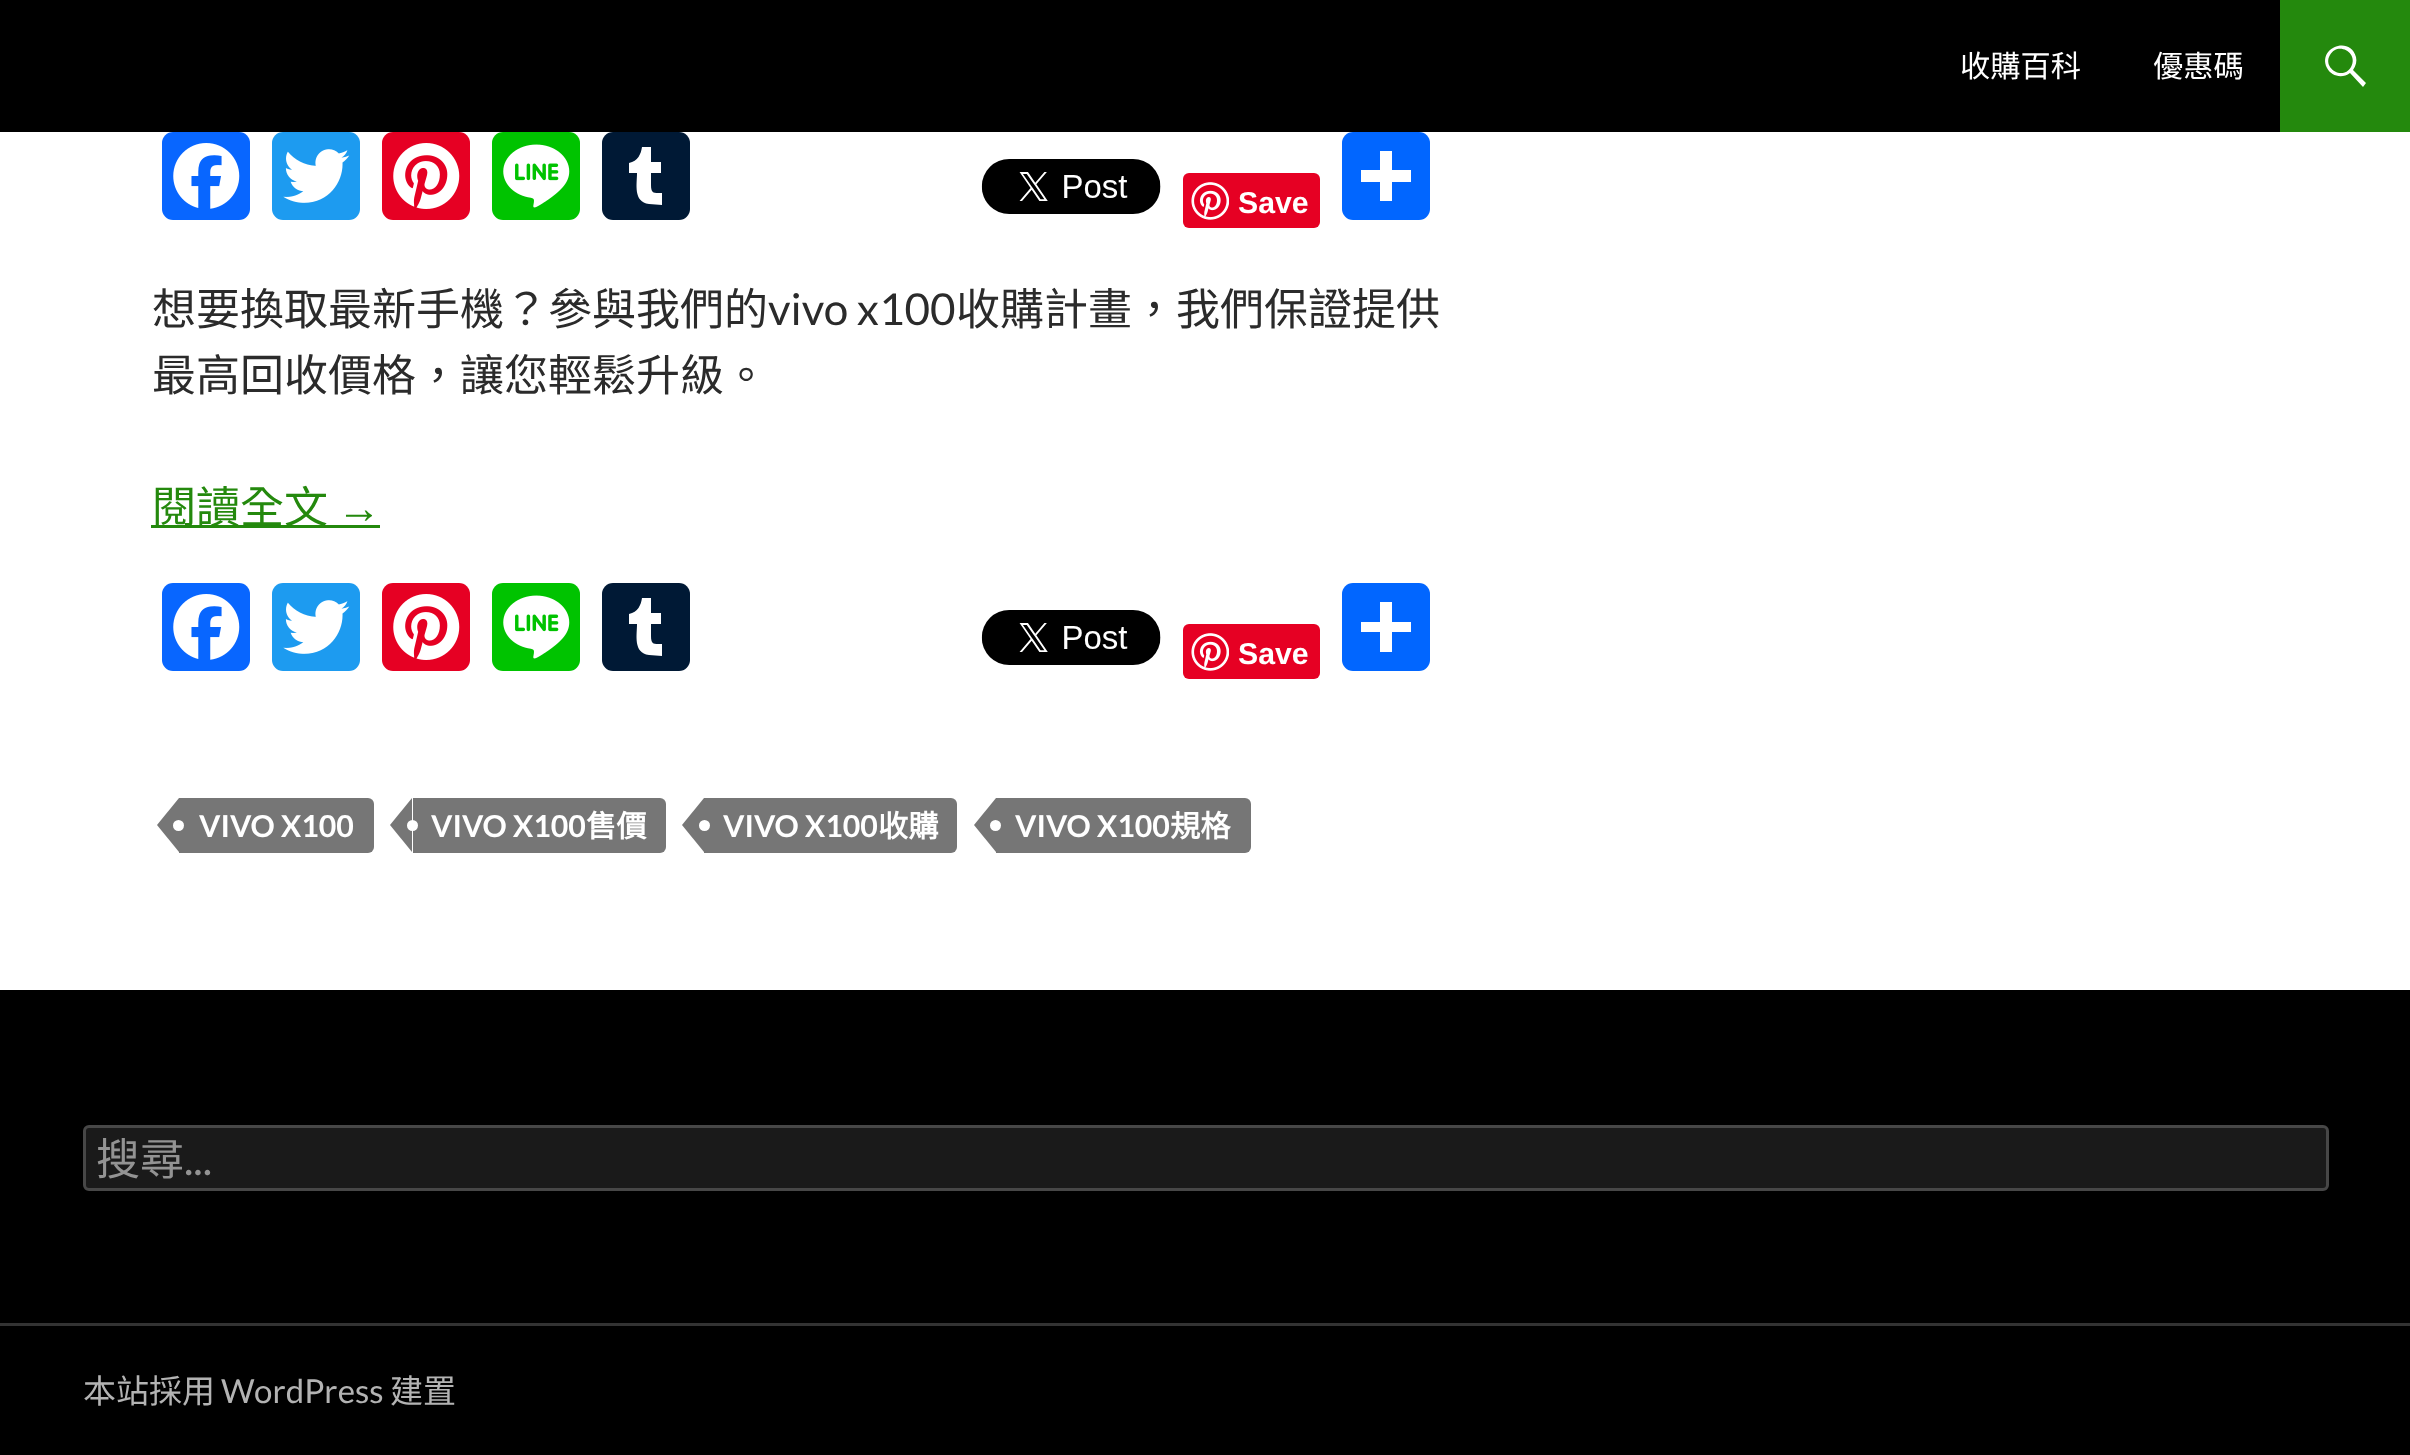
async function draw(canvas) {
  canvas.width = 2410
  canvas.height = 1455
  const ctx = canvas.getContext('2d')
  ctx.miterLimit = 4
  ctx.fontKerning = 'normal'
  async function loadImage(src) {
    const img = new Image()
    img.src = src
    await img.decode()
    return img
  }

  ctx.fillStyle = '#fff'
  ctx.fillRect(0, 0, 2410, 1455)
  ctx.fillStyle = '#000'
  ctx.fillRect(0, 0, 2280, 132)
  ctx.font = '30.25px Noto Sans CJK TC'
  ctx.fillStyle = '#fff'
  ctx.fillText('收購百科', 1960, 77)
  ctx.fillText('優惠碼', 2153, 77)
  ctx.fillStyle = '#24890d'
  ctx.fillRect(2280, 0, 130, 132)
  ctx.fillStyle = '#fff'
  ctx.beginPath()
  ctx.moveTo(2366, 83)
  ctx.lineTo(2363, 87)
  ctx.lineTo(2350, 73)
  ctx.bezierCurveTo(2342, 79, 2331, 76, 2327, 68)
  ctx.bezierCurveTo(2317, 48, 2350, 35, 2356, 57)
  ctx.bezierCurveTo(2357, 61, 2356, 66, 2353, 70)
  ctx.closePath()
  ctx.moveTo(2330, 55)
  ctx.bezierCurveTo(2322, 68, 2343, 81, 2351, 67)
  ctx.bezierCurveTo(2359, 53, 2338, 41, 2330, 55)
  ctx.closePath()
  ctx.fill()
  ctx.fillStyle = '#0866ff'
  ctx.beginPath()
  ctx.roundRect(162, 132, 88, 88, 11)
  ctx.fill()
  ctx.drawImage(await loadImage('image0.png'), 173, 143, 67, 66)
  ctx.fillStyle = '#1d9bf0'
  ctx.beginPath()
  ctx.roundRect(272, 132, 88, 88, 11)
  ctx.fill()
  ctx.drawImage(await loadImage('image1.png'), 283, 149, 67, 54)
  ctx.fillStyle = '#e60023'
  ctx.beginPath()
  ctx.roundRect(382, 132, 88, 88, 11)
  ctx.fill()
  ctx.drawImage(await loadImage('image2.png'), 393, 143, 67, 66)
  ctx.fillStyle = '#00c300'
  ctx.beginPath()
  ctx.roundRect(492, 132, 88, 88, 11)
  ctx.fill()
  ctx.drawImage(await loadImage('image3.png'), 503, 144, 67, 64)
  ctx.fillStyle = '#001935'
  ctx.beginPath()
  ctx.roundRect(602, 132, 88, 88, 11)
  ctx.fill()
  ctx.fillStyle = '#fff'
  ctx.beginPath()
  ctx.moveTo(662, 205)
  ctx.lineTo(649, 204)
  ctx.bezierCurveTo(633, 202, 637, 184, 637, 173)
  ctx.lineTo(629, 173)
  ctx.lineTo(629, 163)
  ctx.bezierCurveTo(638, 161, 641, 154, 642, 147)
  ctx.lineTo(651, 147)
  ctx.lineTo(651, 162)
  ctx.lineTo(661, 162)
  ctx.lineTo(661, 173)
  ctx.lineTo(651, 173)
  ctx.lineTo(651, 185)
  ctx.bezierCurveTo(651, 194, 654, 193, 662, 193)
  ctx.closePath()
  ctx.fill('evenodd')
  ctx.drawImage(await loadImage('image4.png'), 981, 159, 180, 55)
  ctx.fillStyle = '#e60023'
  ctx.beginPath()
  ctx.roundRect(1183, 173, 137, 55, 6)
  ctx.fill()
  ctx.drawImage(await loadImage('image5.png'), 1191, 182, 38, 38)
  ctx.font = 'bold 30.25px Liberation Sans'
  ctx.fillStyle = '#fff'
  ctx.fillText('Save', 1238, 213)
  ctx.fillStyle = '#0166ff'
  ctx.beginPath()
  ctx.roundRect(1342, 132, 88, 88, 11)
  ctx.fill()
  ctx.fillStyle = '#fff'
  ctx.fillRect(1380, 151, 12, 50)
  ctx.fillRect(1361, 170, 50, 12)
  ctx.font = '44px Noto Sans CJK TC'
  ctx.fillStyle = '#2b2b2b'
  ctx.fillText('想要換取最新手機？參與我們的', 152, 325)
  ctx.font = '44px Lato'
  ctx.fillText('vivo x100', 768, 325)
  ctx.font = '44px Noto Sans CJK TC'
  ctx.fillText('收購計畫，我們保證提供', 956, 325)
  ctx.fillText('最高回收價格，讓您輕鬆升級。', 152, 391)
  ctx.fillStyle = '#24890d'
  ctx.fillRect(151, 525, 229, 3)
  ctx.fillText('閱讀全文', 152, 523)
  ctx.font = '44px Liberation Sans'
  ctx.fillText('→', 337, 523)
  ctx.fillStyle = '#0866ff'
  ctx.beginPath()
  ctx.roundRect(162, 583, 88, 88, 11)
  ctx.fill()
  ctx.drawImage(await loadImage('image0.png'), 173, 594, 67, 66)
  ctx.fillStyle = '#1d9bf0'
  ctx.beginPath()
  ctx.roundRect(272, 583, 88, 88, 11)
  ctx.fill()
  ctx.drawImage(await loadImage('image1.png'), 283, 600, 67, 54)
  ctx.fillStyle = '#e60023'
  ctx.beginPath()
  ctx.roundRect(382, 583, 88, 88, 11)
  ctx.fill()
  ctx.drawImage(await loadImage('image2.png'), 393, 594, 67, 66)
  ctx.fillStyle = '#00c300'
  ctx.beginPath()
  ctx.roundRect(492, 583, 88, 88, 11)
  ctx.fill()
  ctx.drawImage(await loadImage('image3.png'), 503, 595, 67, 64)
  ctx.fillStyle = '#001935'
  ctx.beginPath()
  ctx.roundRect(602, 583, 88, 88, 11)
  ctx.fill()
  ctx.fillStyle = '#fff'
  ctx.beginPath()
  ctx.moveTo(662, 656)
  ctx.lineTo(649, 655)
  ctx.bezierCurveTo(633, 653, 637, 635, 637, 624)
  ctx.lineTo(629, 624)
  ctx.lineTo(629, 614)
  ctx.bezierCurveTo(638, 612, 641, 605, 642, 598)
  ctx.lineTo(651, 598)
  ctx.lineTo(651, 613)
  ctx.lineTo(661, 613)
  ctx.lineTo(661, 624)
  ctx.lineTo(651, 624)
  ctx.lineTo(651, 636)
  ctx.bezierCurveTo(651, 645, 654, 644, 662, 644)
  ctx.closePath()
  ctx.fill('evenodd')
  ctx.drawImage(await loadImage('image6.png'), 981, 610, 180, 55)
  ctx.fillStyle = '#e60023'
  ctx.beginPath()
  ctx.roundRect(1183, 624, 137, 55, 6)
  ctx.fill()
  ctx.drawImage(await loadImage('image5.png'), 1191, 633, 38, 38)
  ctx.font = 'bold 30.25px Liberation Sans'
  ctx.fillStyle = '#fff'
  ctx.fillText('Save', 1238, 664)
  ctx.fillStyle = '#0166ff'
  ctx.beginPath()
  ctx.roundRect(1342, 583, 88, 88, 11)
  ctx.fill()
  ctx.fillStyle = '#fff'
  ctx.fillRect(1380, 602, 12, 50)
  ctx.fillRect(1361, 622, 50, 10)
  ctx.fillStyle = '#767676'
  ctx.beginPath()
  ctx.roundRect(179, 798, 195, 55, [0, 6, 6, 0])
  ctx.fill()
  ctx.beginPath()
  ctx.moveTo(179, 798)
  ctx.lineTo(179, 852)
  ctx.lineTo(157, 825)
  ctx.closePath()
  ctx.fill()
  ctx.font = 'bold 30.25px Lato'
  ctx.fillStyle = '#fff'
  ctx.fillText('VIVO X100', 199, 837)
  ctx.beginPath()
  ctx.arc(178.5, 825.5, 5.5, 0, 2 * Math.PI)
  ctx.fill()
  ctx.fillStyle = '#767676'
  ctx.beginPath()
  ctx.roundRect(413, 798, 253, 55, [0, 6, 6, 0])
  ctx.fill()
  ctx.beginPath()
  ctx.moveTo(412, 798)
  ctx.lineTo(412, 852)
  ctx.lineTo(390, 825)
  ctx.closePath()
  ctx.fill()
  ctx.fillStyle = '#fff'
  ctx.beginPath()
  ctx.arc(412.5, 825.5, 5.5, 0, 2 * Math.PI)
  ctx.fill()
  ctx.fillText('VIVO X100', 431, 837)
  ctx.font = 'bold 30.25px Noto Sans CJK TC'
  ctx.fillText('售價', 586, 837)
  ctx.fillStyle = '#767676'
  ctx.beginPath()
  ctx.roundRect(704, 798, 253, 55, [0, 6, 6, 0])
  ctx.fill()
  ctx.beginPath()
  ctx.moveTo(704, 798)
  ctx.lineTo(704, 852)
  ctx.lineTo(682, 825)
  ctx.closePath()
  ctx.fill()
  ctx.fillStyle = '#fff'
  ctx.beginPath()
  ctx.arc(704.5, 825.5, 5.5, 0, 2 * Math.PI)
  ctx.fill()
  ctx.font = 'bold 30.25px Lato'
  ctx.fillText('VIVO X100', 723, 837)
  ctx.font = 'bold 30.25px Noto Sans CJK TC'
  ctx.fillText('收購', 878, 837)
  ctx.fillStyle = '#767676'
  ctx.beginPath()
  ctx.roundRect(996, 798, 255, 55, [0, 6, 6, 0])
  ctx.fill()
  ctx.beginPath()
  ctx.moveTo(996, 798)
  ctx.lineTo(996, 852)
  ctx.lineTo(974, 825)
  ctx.closePath()
  ctx.fill()
  ctx.font = 'bold 30.25px Lato'
  ctx.fillStyle = '#fff'
  ctx.fillText('VIVO X100', 1015, 837)
  ctx.font = 'bold 30.25px Noto Sans CJK TC'
  ctx.fillText('規格', 1170, 837)
  ctx.beginPath()
  ctx.arc(995.5, 825.5, 5.5, 0, 2 * Math.PI)
  ctx.fill()
  ctx.fillStyle = '#000'
  ctx.fillRect(0, 990, 2410, 333)
  ctx.fillStyle = '#333'
  ctx.fillRect(0, 1323, 2410, 3)
  ctx.fillStyle = '#1a1a1a'
  ctx.beginPath()
  ctx.roundRect(83, 1125, 2246, 66, 6)
  ctx.fill()
  ctx.beginPath()
  ctx.roundRect(84.5, 1126.5, 2243, 63, 4.5)
  ctx.strokeStyle = '#ffffff33'
  ctx.lineWidth = 3
  ctx.stroke()
  ctx.font = '44px Noto Sans CJK TC'
  ctx.fillStyle = '#939393'
  ctx.fillText('搜尋', 96, 1175)
  ctx.font = '44px Lato'
  ctx.fillText('...', 184, 1175)
  ctx.fillStyle = '#000'
  ctx.fillRect(0, 1326, 2410, 129)
  ctx.font = '33px Noto Sans CJK TC'
  ctx.fillStyle = '#b3b3b3'
  ctx.fillText('本站採用', 83, 1403)
  ctx.font = '33px Lato'
  ctx.fillText('WordPress', 221, 1403)
  ctx.font = '33px Noto Sans CJK TC'
  ctx.fillText('建置', 390, 1403)
}

draw(document.querySelector('canvas'))
